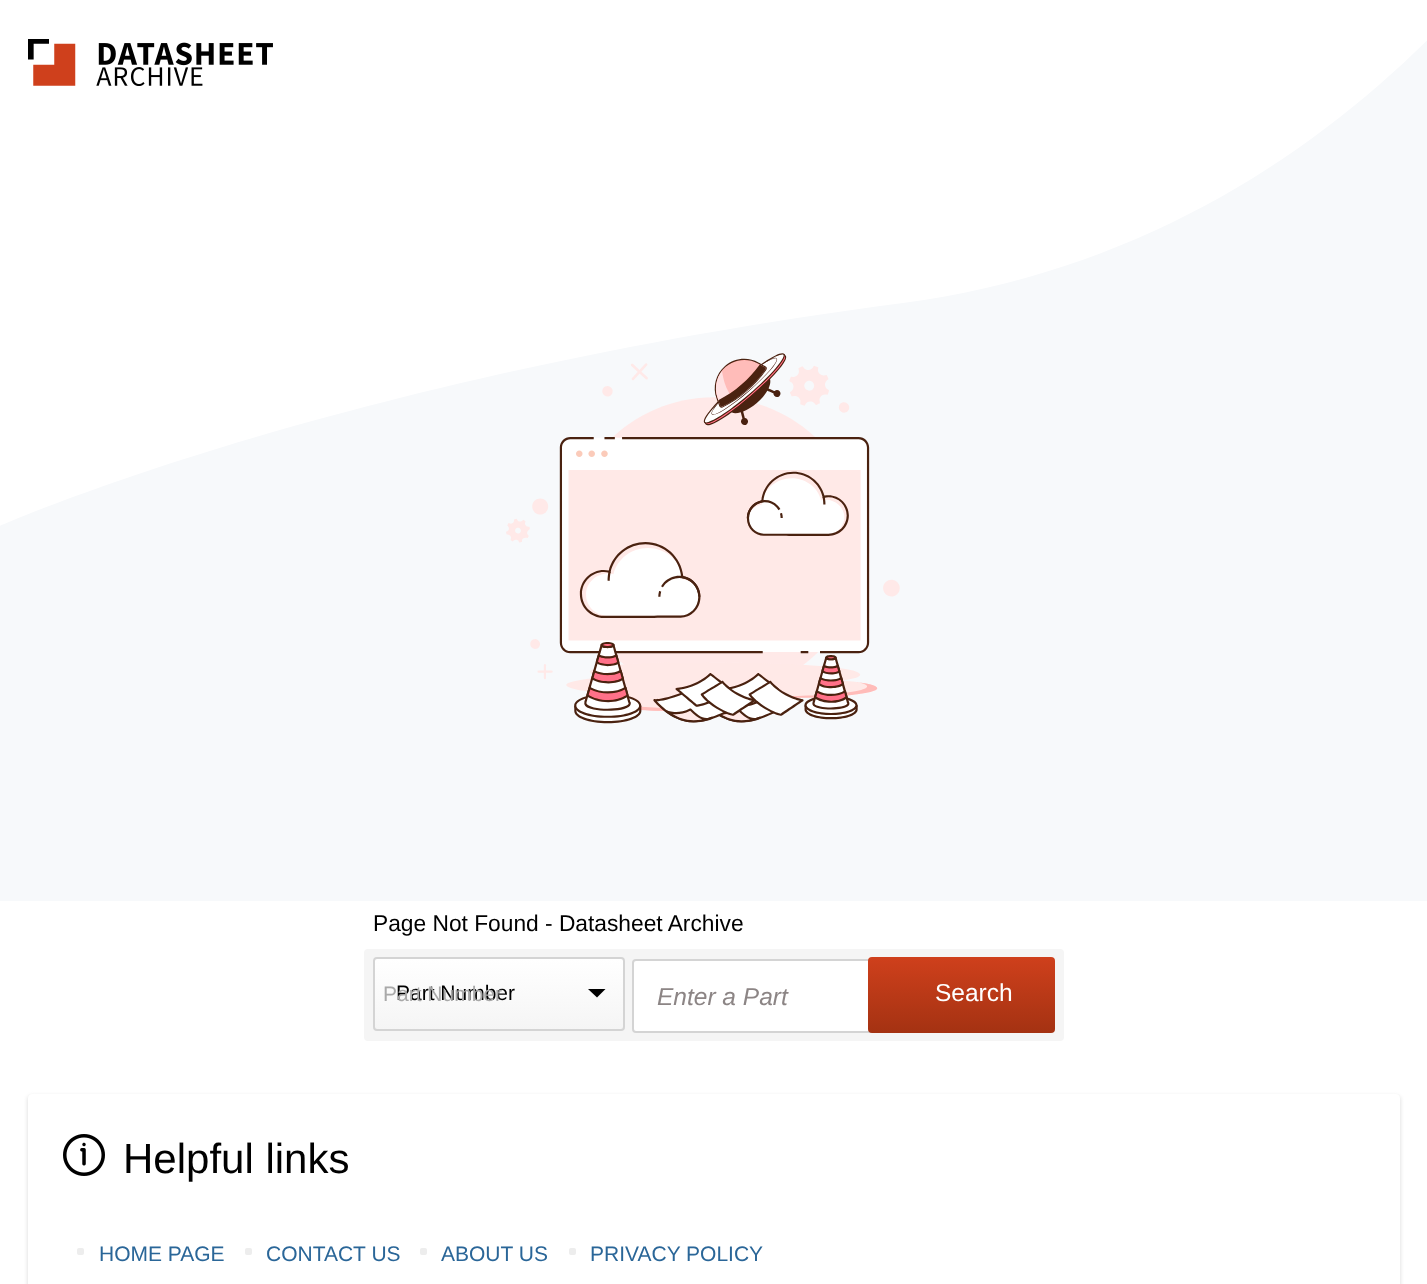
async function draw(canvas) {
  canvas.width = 1427
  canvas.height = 1284
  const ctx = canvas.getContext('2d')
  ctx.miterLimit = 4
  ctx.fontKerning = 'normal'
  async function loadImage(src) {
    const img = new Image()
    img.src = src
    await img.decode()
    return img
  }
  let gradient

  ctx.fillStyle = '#fff'
  ctx.fillRect(0, 0, 1427, 1284)
  ctx.fillStyle = '#f7f9fb'
  ctx.beginPath()
  ctx.moveTo(0, 526)
  ctx.bezierCurveTo(0, 526, 332, 378, 903, 303)
  ctx.bezierCurveTo(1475, 227, 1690, -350, 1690, -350)
  ctx.lineTo(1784, -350)
  ctx.lineTo(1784, 901)
  ctx.lineTo(0, 901)
  ctx.closePath()
  ctx.fill('evenodd')
  ctx.drawImage(await loadImage('image0.png'), 28, 39, 245, 47)
  ctx.drawImage(await loadImage('image1.png'), 506, 353, 394, 371)
  ctx.font = '22.75px Liberation Sans'
  ctx.fillStyle = '#000'
  ctx.fillText('Page Not Found - Datasheet Archive', 373, 931)
  ctx.fillStyle = '#f5f5f5'
  ctx.beginPath()
  ctx.roundRect(364, 949, 700, 92, 4)
  ctx.fill()
  ctx.save()
  ctx.beginPath()
  ctx.roundRect(373, 957, 252, 74, 4)
  ctx.clip()
  gradient = ctx.createLinearGradient(499, 959, 499, 1029)
  gradient.addColorStop(0, '#fff')
  gradient.addColorStop(1, '#f5f5f5')
  ctx.fillStyle = gradient
  ctx.fillRect(373, 959, 252, 70)
  ctx.restore()
  ctx.beginPath()
  ctx.roundRect(374, 958, 250, 72, 3)
  ctx.strokeStyle = '#d4d4d4'
  ctx.lineWidth = 2
  ctx.stroke()
  ctx.font = '21px Liberation Sans'
  ctx.fillStyle = '#000'
  ctx.fillText('Part Number', 396, 1000)
  ctx.fillStyle = '#a9a9a9'
  ctx.fillText('Part Number', 383, 1001)
  ctx.fillStyle = '#000'
  ctx.beginPath()
  ctx.moveTo(588, 989)
  ctx.lineTo(605.5, 989)
  ctx.lineTo(597, 997.5)
  ctx.closePath()
  ctx.fill()
  ctx.fillStyle = '#fff'
  ctx.beginPath()
  ctx.roundRect(633, 960, 386, 72, 3)
  ctx.fill()
  ctx.stroke()
  ctx.font = 'italic 24.5px Liberation Sans'
  ctx.fillStyle = '#8c8585'
  ctx.fillText('Enter a Part', 657, 1005)
  gradient = ctx.createLinearGradient(962, 957, 962, 1033)
  gradient.addColorStop(0, '#cf401c')
  gradient.addColorStop(1, '#a43212')
  ctx.fillStyle = gradient
  ctx.beginPath()
  ctx.roundRect(868, 957, 187, 76, 4)
  ctx.fill()
  ctx.font = '24.5px Liberation Sans'
  ctx.fillStyle = '#fff'
  ctx.fillText('Search', 935, 1001)
  ctx.save()
  ctx.beginPath()
  ctx.moveTo(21, 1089)
  ctx.lineTo(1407, 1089)
  ctx.lineTo(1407, 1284)
  ctx.lineTo(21, 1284)
  ctx.closePath()
  ctx.moveTo(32, 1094)
  ctx.lineTo(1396, 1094)
  ctx.bezierCurveTo(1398, 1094, 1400, 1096, 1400, 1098)
  ctx.lineTo(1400, 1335)
  ctx.bezierCurveTo(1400, 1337, 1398, 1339, 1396, 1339)
  ctx.lineTo(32, 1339)
  ctx.bezierCurveTo(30, 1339, 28, 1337, 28, 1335)
  ctx.lineTo(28, 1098)
  ctx.bezierCurveTo(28, 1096, 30, 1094, 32, 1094)
  ctx.closePath()
  ctx.clip('evenodd')
  ctx.fillStyle = '#d8d8d8'
  ctx.filter = 'blur(2px)'
  ctx.beginPath()
  ctx.roundRect(28, 1096, 1372, 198, 4)
  ctx.fill()
  ctx.filter = 'none'
  ctx.restore()
  ctx.drawImage(await loadImage('image2.png'), 63, 1134, 42, 42)
  ctx.font = '42px Liberation Sans'
  ctx.fillStyle = '#000'
  ctx.fillText('Helpful links', 123, 1173)
  ctx.fillStyle = '#ededed'
  ctx.beginPath()
  ctx.roundRect(77, 1248, 7, 7, 2)
  ctx.fill()
  ctx.font = '21px Liberation Sans'
  ctx.fillStyle = '#2a6698'
  ctx.fillText('HOME PAGE', 99, 1261)
  ctx.fillStyle = '#ededed'
  ctx.beginPath()
  ctx.roundRect(245, 1248, 7, 7, 2)
  ctx.fill()
  ctx.fillStyle = '#2a6698'
  ctx.fillText('CONTACT US', 266, 1261)
  ctx.fillStyle = '#ededed'
  ctx.beginPath()
  ctx.roundRect(420, 1248, 7, 7, 2)
  ctx.fill()
  ctx.fillStyle = '#2a6698'
  ctx.fillText('ABOUT US', 441, 1261)
  ctx.fillStyle = '#ededed'
  ctx.beginPath()
  ctx.roundRect(569, 1248, 7, 7, 2)
  ctx.fill()
  ctx.fillStyle = '#2a6698'
  ctx.fillText('PRIVACY POLICY', 590, 1261)
}

draw(document.querySelector('canvas'))
